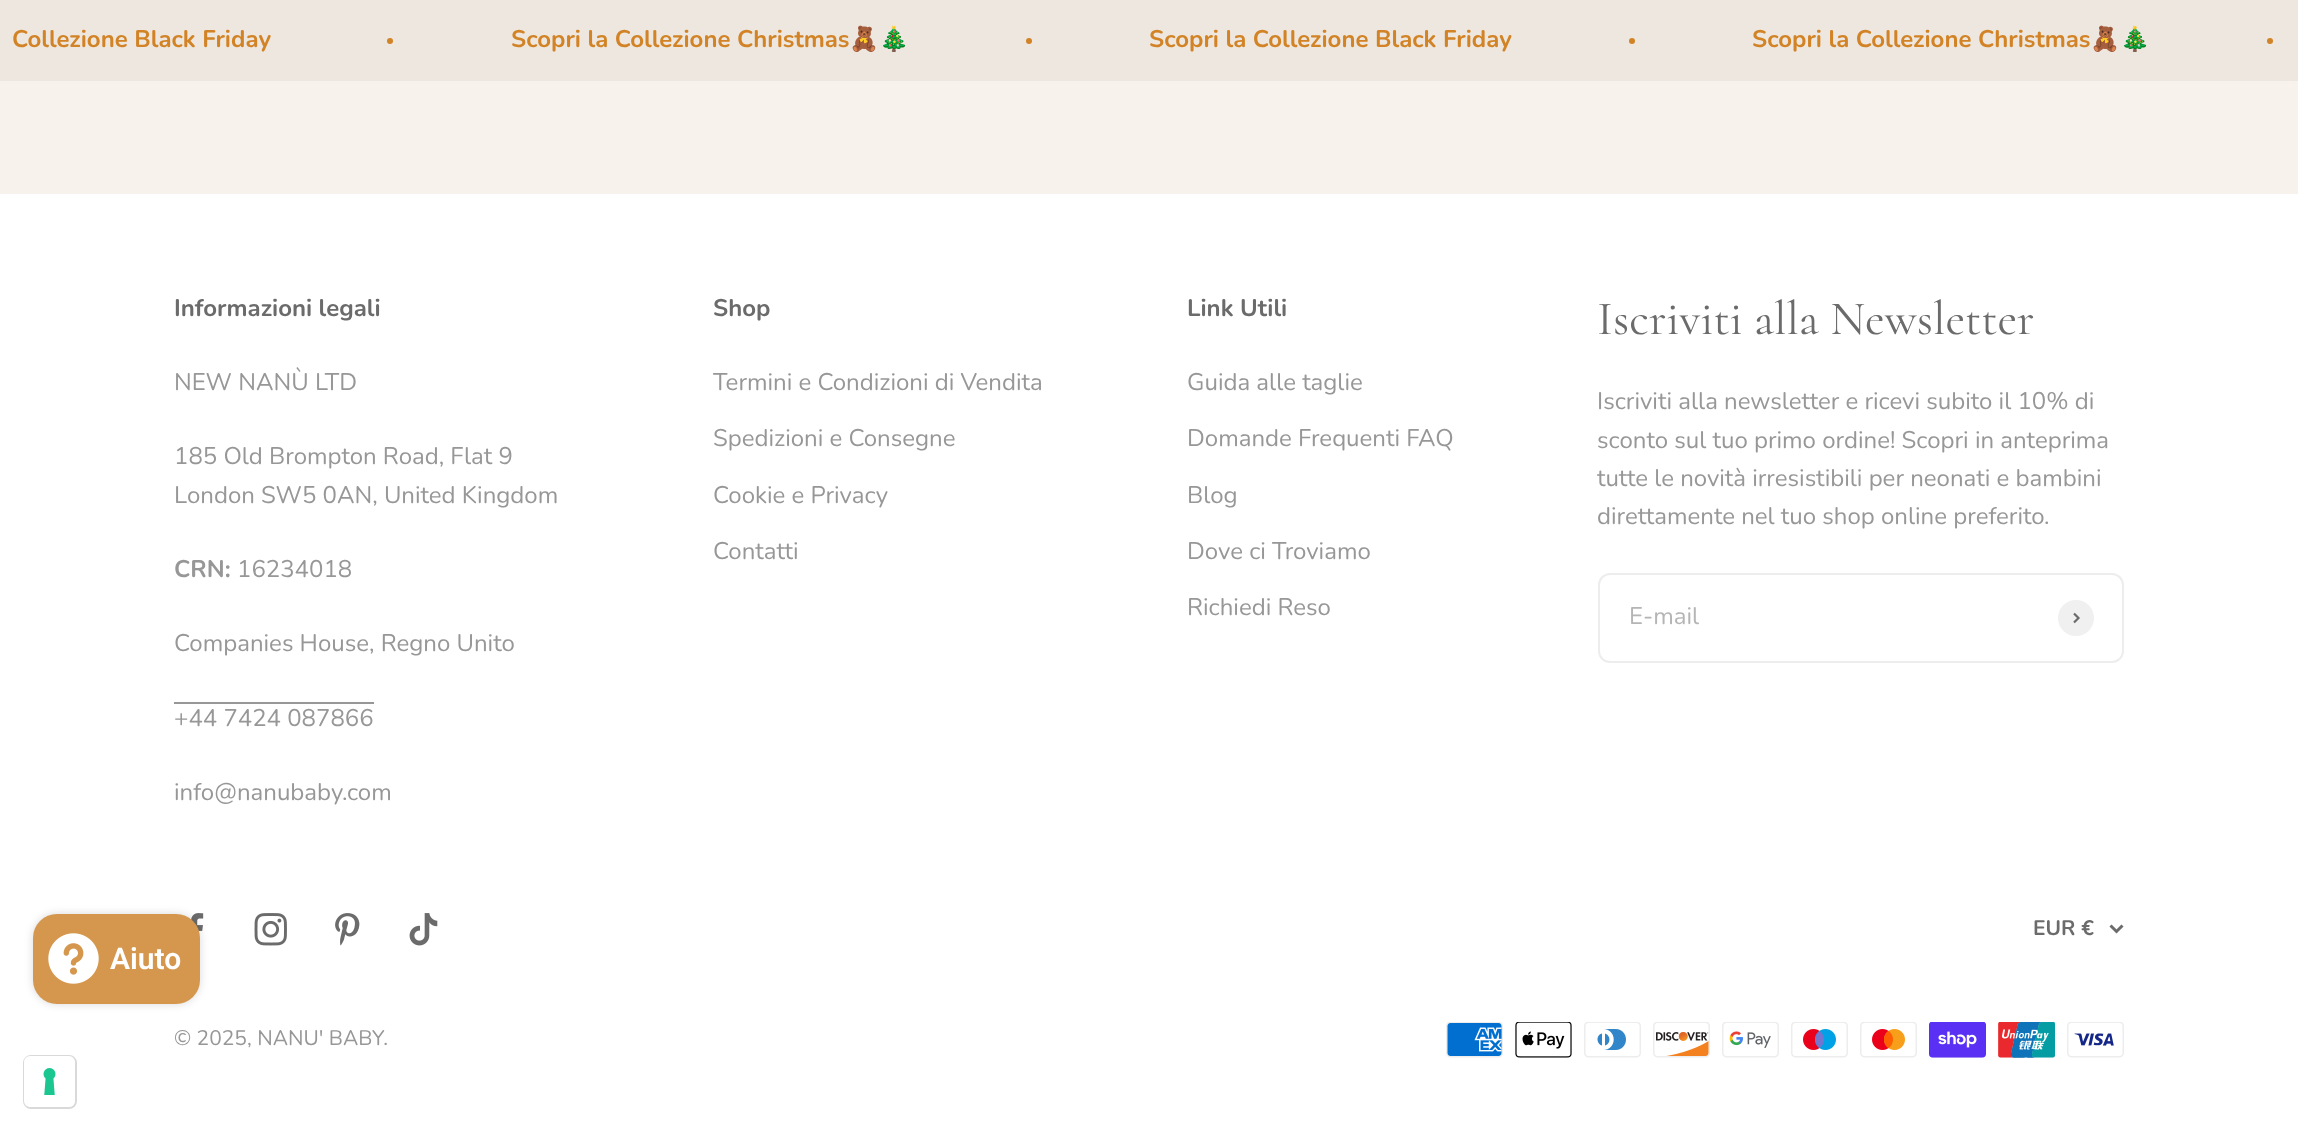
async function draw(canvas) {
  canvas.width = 2298
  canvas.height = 1130
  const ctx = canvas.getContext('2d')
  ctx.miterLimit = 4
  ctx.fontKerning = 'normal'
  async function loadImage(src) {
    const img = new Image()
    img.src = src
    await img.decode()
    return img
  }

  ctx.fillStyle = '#f7f3ec'
  ctx.fillRect(0, 0, 2298, 1130)
  ctx.fillStyle = '#ede7df'
  ctx.fillRect(0, 0, 2298, 81)
  ctx.font = 'bold 24px Nunito'
  ctx.fillStyle = '#d28326'
  ctx.fillText('Collezione Black Friday', 12, 47)
  ctx.beginPath()
  ctx.arc(390, 41, 3, 0, 2 * Math.PI)
  ctx.fill()
  ctx.fillText('Scopri la Collezione Christmas', 511, 47)
  ctx.font = 'bold 24px Noto Color Emoji'
  ctx.fillText('🧸🎄', 849, 47)
  ctx.beginPath()
  ctx.arc(1029, 41, 3, 0, 2 * Math.PI)
  ctx.fill()
  ctx.font = 'bold 24px Nunito'
  ctx.fillText('Scopri la Collezione Black Friday', 1149, 47)
  ctx.beginPath()
  ctx.arc(1632, 41, 3, 0, 2 * Math.PI)
  ctx.fill()
  ctx.fillText('Scopri la Collezione Christmas', 1752, 47)
  ctx.font = 'bold 24px Noto Color Emoji'
  ctx.fillText('🧸🎄', 2090, 47)
  ctx.beginPath()
  ctx.arc(2270, 41, 3, 0, 2 * Math.PI)
  ctx.fill()
  ctx.fillStyle = '#fff'
  ctx.fillRect(0, 194, 2298, 936)
  ctx.drawImage(await loadImage('image1.png'), 191, 913, 13, 18)
  ctx.fillStyle = '#00000026'
  ctx.filter = 'blur(4px)'
  ctx.beginPath()
  ctx.roundRect(33, 914, 167, 90, 24)
  ctx.fill()
  ctx.filter = 'none'
  ctx.fillStyle = '#d5974e'
  ctx.beginPath()
  ctx.roundRect(33, 914, 167, 90, 24)
  ctx.fill()
  ctx.drawImage(await loadImage('image0.png'), 48, 933, 51, 51)
  ctx.font = '600 30px Roboto'
  ctx.fillStyle = '#fff'
  ctx.fillText('Aiuto', 110, 969)
  ctx.font = 'bold 24px Nunito'
  ctx.fillStyle = '#6b6b6b'
  ctx.fillText('Informazioni legali', 174, 316)
  ctx.font = '24px Nunito'
  ctx.fillStyle = '#979797'
  ctx.fillText('NEW NANÙ LTD', 174, 390)
  ctx.fillText('185 Old Brompton Road, Flat 9', 174, 464)
  ctx.fillText('London SW5 0AN, United Kingdom', 174, 503)
  ctx.font = 'bold 24px Nunito'
  ctx.fillText('CRN:', 174, 577)
  ctx.font = '24px Nunito'
  ctx.fillText('16234018', 237, 577)
  ctx.fillText('Companies House, Regno Unito', 174, 651)
  ctx.fillText('+44 7424 087866', 174, 726)
  ctx.fillRect(174, 702, 200, 2)
  ctx.fillText('info@nanubaby.com', 174, 800)
  ctx.font = 'bold 24px Nunito'
  ctx.fillStyle = '#6b6b6b'
  ctx.fillText('Shop', 713, 316)
  ctx.font = '24px Nunito'
  ctx.fillStyle = '#979797'
  ctx.fillText('Termini e Condizioni di Vendita', 713, 390)
  ctx.fillText('Spedizioni e Consegne', 713, 446)
  ctx.fillText('Cookie e Privacy', 713, 503)
  ctx.fillText('Contatti', 713, 559)
  ctx.font = 'bold 24px Nunito'
  ctx.fillStyle = '#6b6b6b'
  ctx.fillText('Link Utili', 1187, 316)
  ctx.font = '24px Nunito'
  ctx.fillStyle = '#979797'
  ctx.fillText('Guida alle taglie', 1187, 390)
  ctx.fillText('Domande Frequenti FAQ', 1187, 446)
  ctx.fillText('Blog', 1187, 503)
  ctx.fillText('Dove ci Troviamo', 1187, 559)
  ctx.fillText('Richiedi Reso', 1187, 615)
  ctx.font = '48px Cormorant'
  ctx.fillStyle = '#6b6b6b'
  ctx.fillText('Iscriviti alla Newsletter', 1597, 334)
  ctx.font = '24px Nunito'
  ctx.fillStyle = '#979797'
  ctx.fillText('Iscriviti alla newsletter e ricevi subito il 10% di', 1597, 409)
  ctx.fillText('sconto sul tuo primo ordine! Scopri in anteprima', 1597, 448)
  ctx.fillText('tutte le novità irresistibili per neonati e bambini', 1597, 486)
  ctx.fillText('direttamente nel tuo shop online preferito.', 1597, 524)
  ctx.beginPath()
  ctx.roundRect(1599, 574, 524, 88, 11)
  ctx.strokeStyle = '#ededed'
  ctx.lineWidth = 2
  ctx.stroke()
  ctx.fillStyle = '#b5b5b5'
  ctx.fillText('E-mail', 1629, 624)
  ctx.fillStyle = '#f0f0f0'
  ctx.beginPath()
  ctx.arc(2076, 618, 18, 0, 2 * Math.PI)
  ctx.fill()
  ctx.beginPath()
  ctx.moveTo(2074, 622.5)
  ctx.lineTo(2078.5, 618)
  ctx.lineTo(2074, 613.5)
  ctx.strokeStyle = '#6b6b6b'
  ctx.lineWidth = 2.2
  ctx.stroke()
  ctx.drawImage(await loadImage('image2.png'), 254, 913, 33, 33)
  ctx.drawImage(await loadImage('image3.png'), 335, 913, 25, 33)
  ctx.drawImage(await loadImage('image4.png'), 409, 913, 29, 33)
  ctx.font = 'bold 21px Nunito'
  ctx.fillStyle = '#6b6b6b'
  ctx.fillText('EUR €', 2033, 935)
  ctx.beginPath()
  ctx.moveTo(2110.5, 925.5)
  ctx.lineTo(2116.5, 931.5)
  ctx.lineTo(2122.5, 925.5)
  ctx.lineWidth = 3
  ctx.stroke()
  ctx.font = '21px Nunito'
  ctx.fillStyle = '#979797'
  ctx.fillText('© 2025, NANU\' BABY.', 174, 1045)
  ctx.drawImage(await loadImage('image5.png'), 1446, 1022, 57, 36)
  ctx.drawImage(await loadImage('image6.png'), 1515, 1022, 57, 36)
  ctx.drawImage(await loadImage('image7.png'), 1584, 1022, 57, 36)
  ctx.drawImage(await loadImage('image8.png'), 1653, 1022, 57, 36)
  ctx.drawImage(await loadImage('image9.png'), 1722, 1022, 57, 36)
  ctx.drawImage(await loadImage('image10.png'), 1791, 1022, 57, 36)
  ctx.drawImage(await loadImage('image11.png'), 1860, 1022, 57, 36)
  ctx.drawImage(await loadImage('image12.png'), 1929, 1022, 57, 36)
  ctx.drawImage(await loadImage('image13.png'), 1998, 1022, 57, 36)
  ctx.drawImage(await loadImage('image14.png'), 2067, 1022, 57, 36)
  ctx.beginPath()
  ctx.roundRect(24, 1056, 52, 52, 7)
  ctx.strokeStyle = '#d9d9d9'
  ctx.lineWidth = 2
  ctx.stroke()
  ctx.fillStyle = '#fff'
  ctx.beginPath()
  ctx.roundRect(24, 1056, 51, 51, 6)
  ctx.fill()
  ctx.drawImage(await loadImage('image15.png'), 43, 1068, 13, 27)
}

draw(document.querySelector('canvas'))
